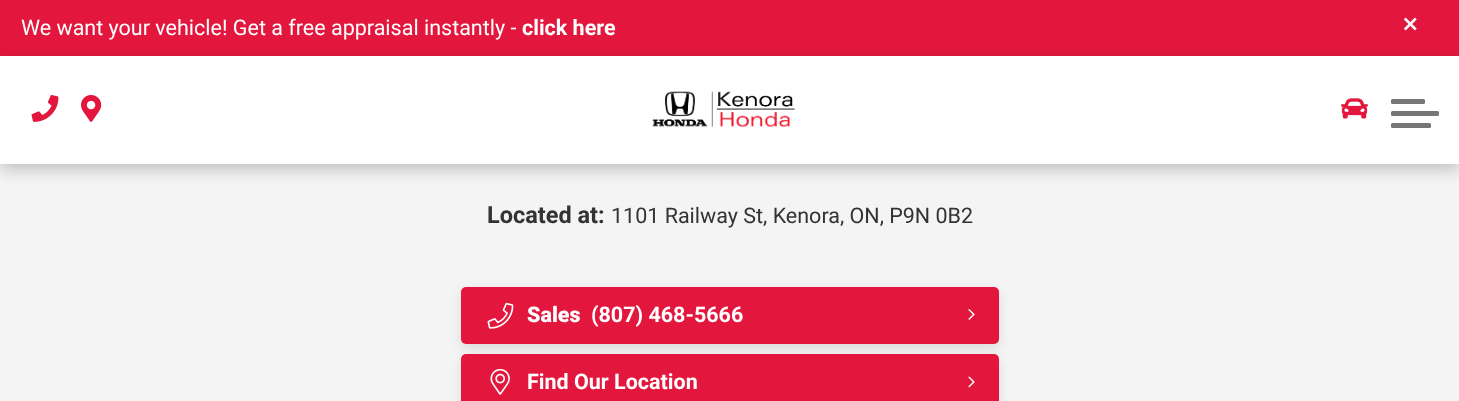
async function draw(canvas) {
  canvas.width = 1459
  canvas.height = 401
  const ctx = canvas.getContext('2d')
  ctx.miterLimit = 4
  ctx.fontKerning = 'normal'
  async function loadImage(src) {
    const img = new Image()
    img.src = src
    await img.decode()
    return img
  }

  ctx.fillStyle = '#f4f4f4'
  ctx.fillRect(0, 0, 1459, 401)
  ctx.fillStyle = '#e3173e'
  ctx.fillRect(0, 0, 1459, 56)
  ctx.font = '21.5px Roboto'
  ctx.fillStyle = '#fff'
  ctx.fillText('We want your vehicle! Get a free appraisal instantly -', 21, 35)
  ctx.font = 'bold 21.5px Roboto'
  ctx.fillText('click here', 522, 35)
  ctx.drawImage(await loadImage('image0.png'), 1404, 17, 13, 14)
  ctx.fillStyle = '#00000033'
  ctx.filter = 'blur(8px)'
  ctx.beginPath()
  ctx.rect(0, 62, 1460, 108)
  ctx.fill()
  ctx.filter = 'none'
  ctx.fillStyle = '#fff'
  ctx.fillRect(0, 56, 1459, 108)
  ctx.drawImage(await loadImage('image1.png'), 31, 95, 28, 27)
  ctx.drawImage(await loadImage('image2.png'), 81, 95, 21, 27)
  ctx.drawImage(await loadImage('image3.png'), 652, 91, 143, 37)
  ctx.drawImage(await loadImage('image4.png'), 1341, 98, 27, 21)
  ctx.fillStyle = '#777'
  ctx.beginPath()
  ctx.roundRect(1391, 111, 48, 5, 1.5)
  ctx.fill()
  ctx.beginPath()
  ctx.roundRect(1391, 99, 34, 5, 1.5)
  ctx.fill()
  ctx.beginPath()
  ctx.roundRect(1391, 123, 40, 5, 1.5)
  ctx.fill()
  ctx.font = 'bold 23.5px Roboto'
  ctx.fillStyle = '#333'
  ctx.fillText('Located at:', 487, 223)
  ctx.font = '21.5px Roboto'
  ctx.fillText('1101 Railway St, Kenora, ON, P9N 0B2', 611, 223)
  ctx.fillStyle = '#0000001a'
  ctx.filter = 'blur(5.5px)'
  ctx.beginPath()
  ctx.roundRect(461, 291, 538, 57, 5)
  ctx.fill()
  ctx.filter = 'none'
  ctx.fillStyle = '#e3173e'
  ctx.beginPath()
  ctx.roundRect(461, 287, 538, 57, 5)
  ctx.fill()
  ctx.drawImage(await loadImage('image5.png'), 487, 302, 27, 27)
  ctx.font = '900 21.5px Roboto'
  ctx.fillStyle = '#fff'
  ctx.fillText('Sales', 527, 322)
  ctx.font = 'bold 21.5px Roboto'
  ctx.fillText('(807) 468-5666', 591, 322)
  ctx.drawImage(await loadImage('image6.png'), 968, 309, 7, 11)
  ctx.fillStyle = '#0000001a'
  ctx.filter = 'blur(5.5px)'
  ctx.beginPath()
  ctx.roundRect(461, 359, 538, 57, 5)
  ctx.fill()
  ctx.filter = 'none'
  ctx.fillStyle = '#e3173e'
  ctx.beginPath()
  ctx.roundRect(461, 354, 538, 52, 5)
  ctx.fill()
  ctx.drawImage(await loadImage('image7.png'), 490, 368, 20, 27)
  ctx.fillStyle = '#fff'
  ctx.fillText('Find Our Location', 527, 389)
  ctx.drawImage(await loadImage('image8.png'), 968, 376, 7, 12)
}

draw(document.querySelector('canvas'))
